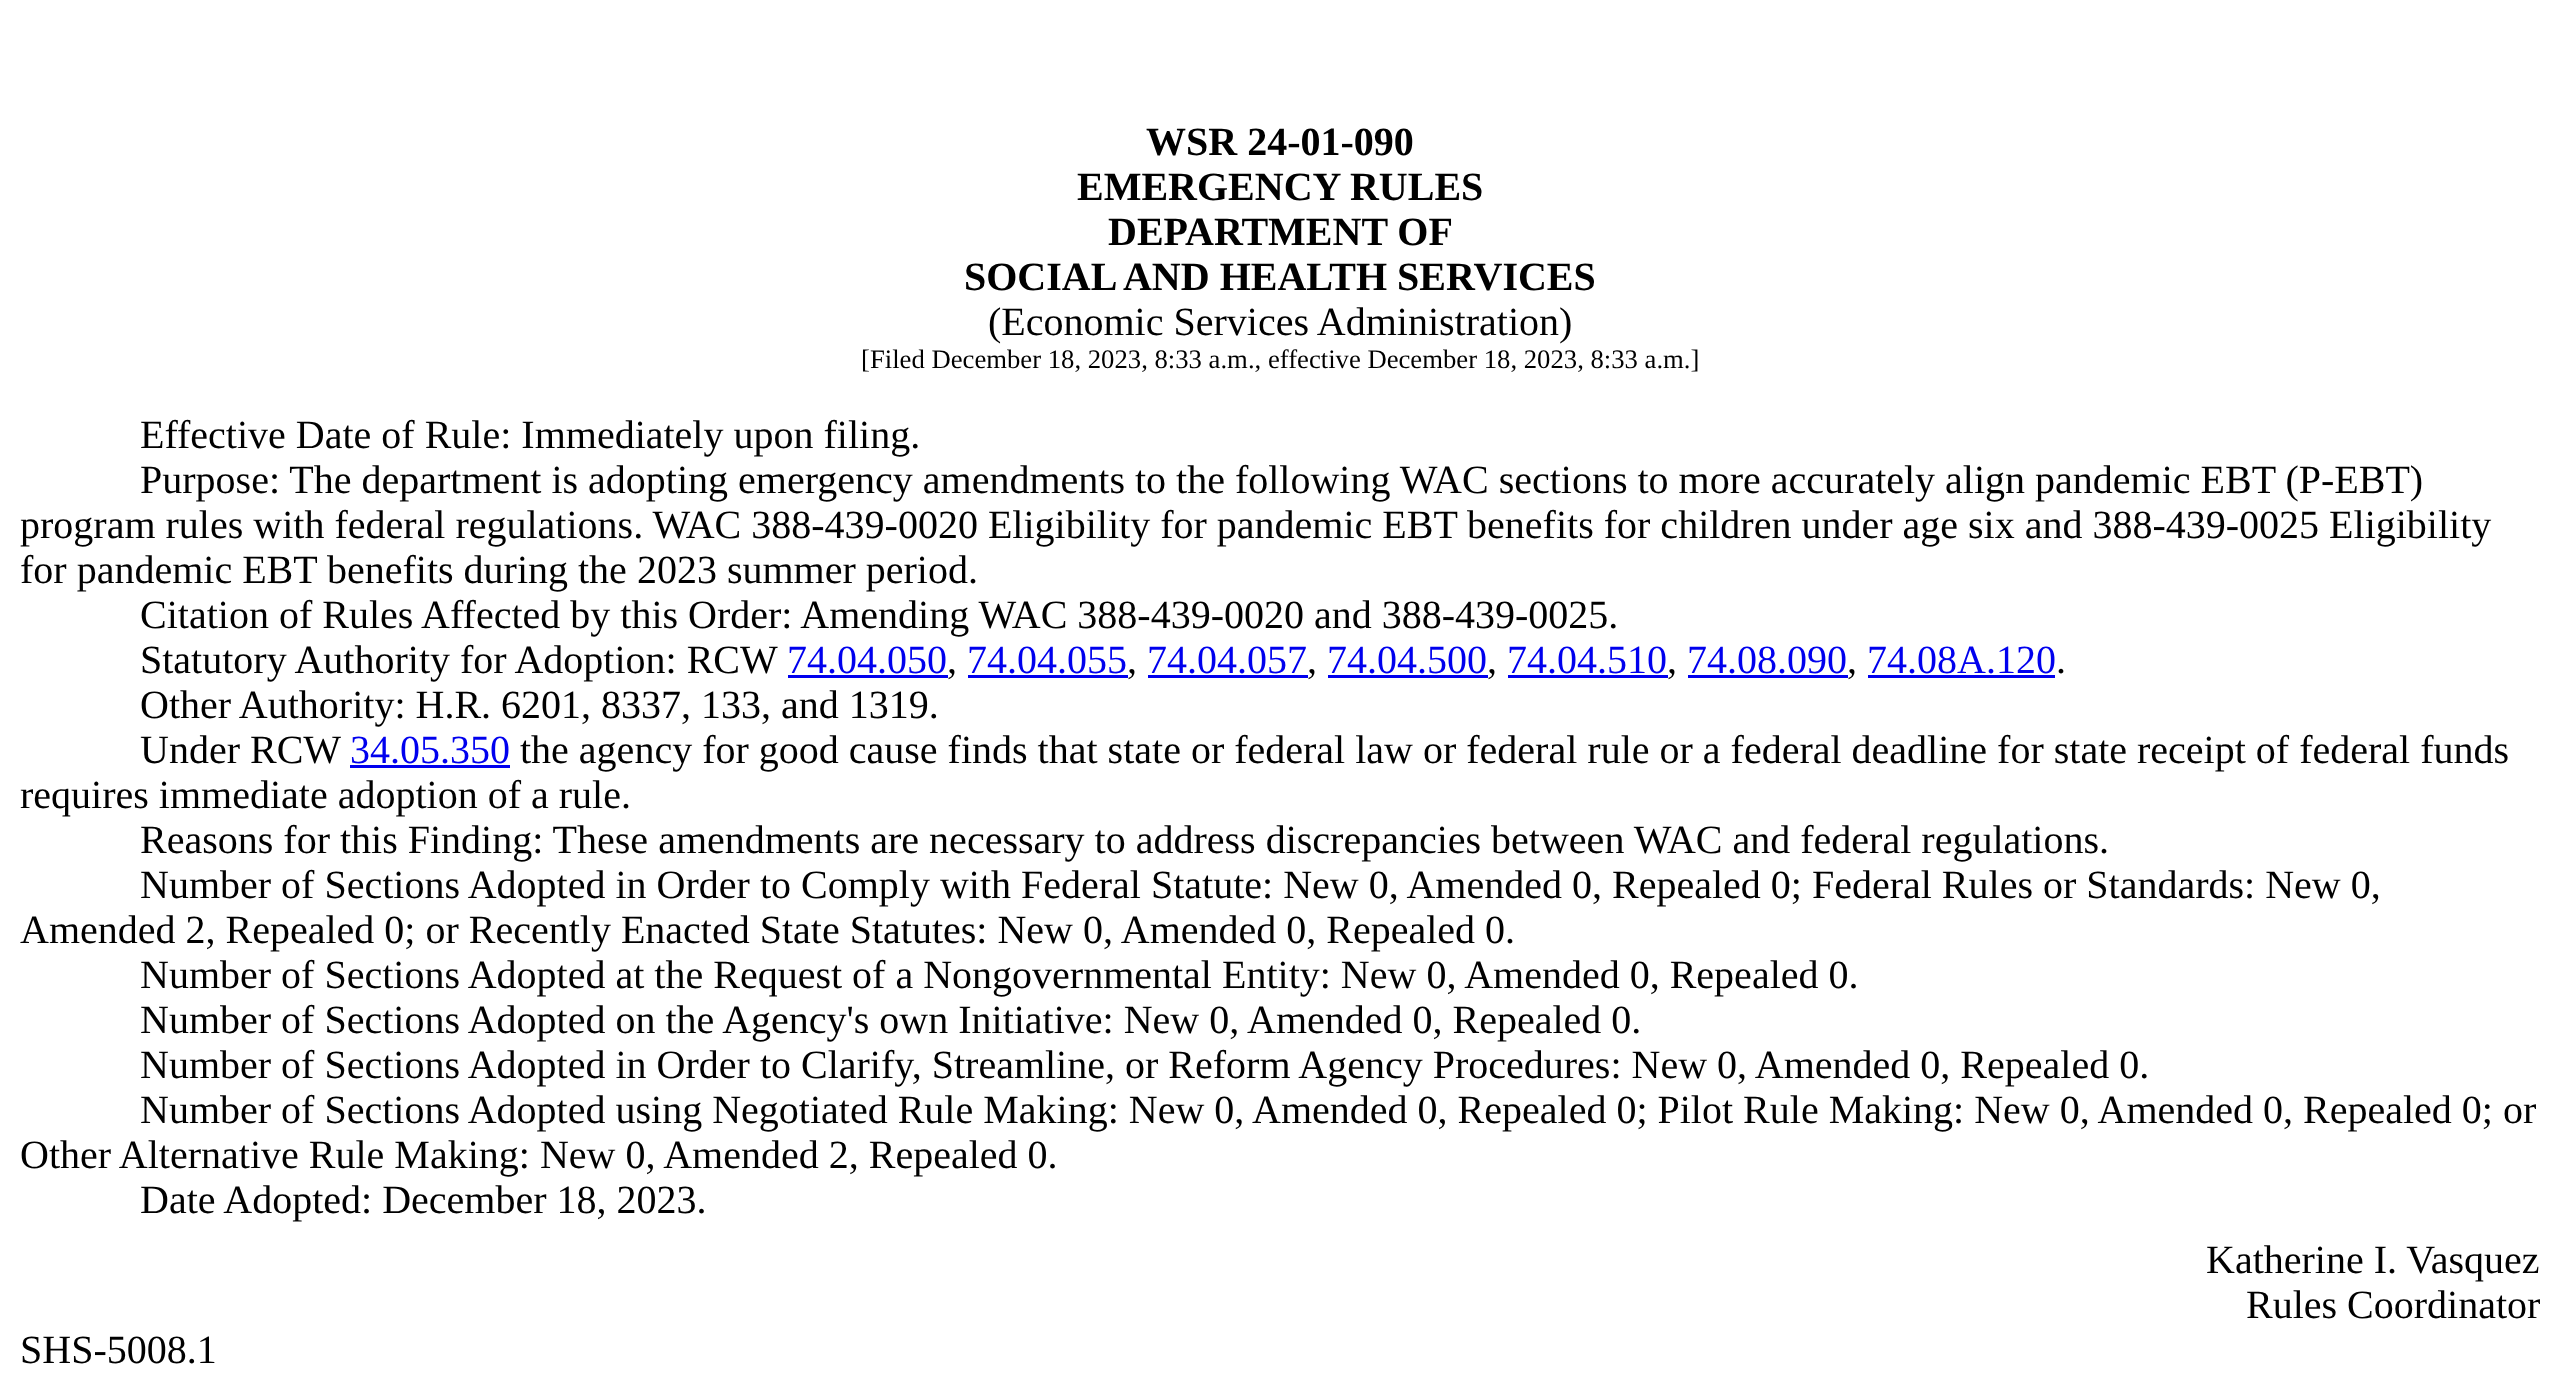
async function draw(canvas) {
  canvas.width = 2558
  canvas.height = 1376
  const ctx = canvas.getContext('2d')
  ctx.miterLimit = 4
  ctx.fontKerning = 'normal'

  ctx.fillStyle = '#fff'
  ctx.fillRect(0, 0, 2558, 1376)
  ctx.font = 'bold 40px Liberation Serif'
  ctx.fillStyle = '#000'
  ctx.fillText('WSR 24-01-090', 1146, 155)
  ctx.fillText('EMERGENCY RULES', 1077, 200)
  ctx.fillText('DEPARTMENT OF', 1108, 245)
  ctx.fillText('SOCIAL AND HEALTH SERVICES', 964, 290)
  ctx.font = '40px Liberation Serif'
  ctx.fillText('(Economic Services Administration)', 988, 335)
  ctx.font = '26.7px Liberation Serif'
  ctx.fillText('[Filed December 18, 2023, 8:33 a.m., effective December 18, 2023, 8:33 a.m.]', 861, 368)
  ctx.font = '40px Liberation Serif'
  ctx.fillText('Effective Date of Rule: Immediately upon filing.', 140, 448)
  ctx.fillText('Purpose: The department is adopting emergency amendments to the following WAC sections to more accurately align pandemic EBT (P-EBT)', 140, 493)
  ctx.fillText('program rules with federal regulations. WAC 388-439-0020 Eligibility for pandemic EBT benefits for children under age six and 388-439-0025 Eligibility', 20, 538)
  ctx.fillText('for pandemic EBT benefits during the 2023 summer period.', 20, 583)
  ctx.fillText('Citation of Rules Affected by this Order: Amending WAC 388-439-0020 and 388-439-0025.', 140, 628)
  ctx.fillText('Statutory Authority for Adoption: RCW', 140, 673)
  ctx.fillStyle = '#00e'
  ctx.fillText('74.04.050', 787, 673)
  ctx.fillRect(788, 675, 160, 3)
  ctx.fillStyle = '#000'
  ctx.fillText(',', 947, 673)
  ctx.fillStyle = '#00e'
  ctx.fillText('74.04.055', 967, 673)
  ctx.fillRect(968, 675, 160, 3)
  ctx.fillStyle = '#000'
  ctx.fillText(',', 1127, 673)
  ctx.fillStyle = '#00e'
  ctx.fillText('74.04.057', 1147, 673)
  ctx.fillRect(1148, 675, 160, 3)
  ctx.fillStyle = '#000'
  ctx.fillText(',', 1307, 673)
  ctx.fillStyle = '#00e'
  ctx.fillText('74.04.500', 1327, 673)
  ctx.fillRect(1328, 675, 160, 3)
  ctx.fillStyle = '#000'
  ctx.fillText(',', 1487, 673)
  ctx.fillStyle = '#00e'
  ctx.fillText('74.04.510', 1507, 673)
  ctx.fillRect(1508, 675, 160, 3)
  ctx.fillStyle = '#000'
  ctx.fillText(',', 1667, 673)
  ctx.fillStyle = '#00e'
  ctx.fillText('74.08.090', 1687, 673)
  ctx.fillRect(1688, 675, 160, 3)
  ctx.fillStyle = '#000'
  ctx.fillText(',', 1847, 673)
  ctx.fillStyle = '#00e'
  ctx.fillText('74.08A.120', 1867, 673)
  ctx.fillRect(1868, 675, 187, 3)
  ctx.fillStyle = '#000'
  ctx.fillText('.', 2056, 673)
  ctx.fillText('Other Authority: H.R. 6201, 8337, 133, and 1319.', 140, 718)
  ctx.fillText('Under RCW', 140, 763)
  ctx.fillStyle = '#00e'
  ctx.fillText('34.05.350', 350, 763)
  ctx.fillRect(350, 765, 160, 3)
  ctx.fillStyle = '#000'
  ctx.fillText('the agency for good cause finds that state or federal law or federal rule or a federal deadline for state receipt of federal funds', 520, 763)
  ctx.fillText('requires immediate adoption of a rule.', 20, 808)
  ctx.fillText('Reasons for this Finding: These amendments are necessary to address discrepancies between WAC and federal regulations.', 140, 853)
  ctx.fillText('Number of Sections Adopted in Order to Comply with Federal Statute: New 0, Amended 0, Repealed 0; Federal Rules or Standards: New 0,', 140, 898)
  ctx.fillText('Amended 2, Repealed 0; or Recently Enacted State Statutes: New 0, Amended 0, Repealed 0.', 20, 943)
  ctx.fillText('Number of Sections Adopted at the Request of a Nongovernmental Entity: New 0, Amended 0, Repealed 0.', 140, 988)
  ctx.fillText('Number of Sections Adopted on the Agency\'s own Initiative: New 0, Amended 0, Repealed 0.', 140, 1033)
  ctx.fillText('Number of Sections Adopted in Order to Clarify, Streamline, or Reform Agency Procedures: New 0, Amended 0, Repealed 0.', 140, 1078)
  ctx.fillText('Number of Sections Adopted using Negotiated Rule Making: New 0, Amended 0, Repealed 0; Pilot Rule Making: New 0, Amended 0, Repealed 0; or', 140, 1123)
  ctx.fillText('Other Alternative Rule Making: New 0, Amended 2, Repealed 0.', 20, 1168)
  ctx.fillText('Date Adopted: December 18, 2023.', 140, 1213)
  ctx.fillText('Katherine I. Vasquez', 2206, 1273)
  ctx.fillText('Rules Coordinator', 2246, 1318)
  ctx.fillText('SHS-5008.1', 20, 1363)
}

draw(document.querySelector('canvas'))
